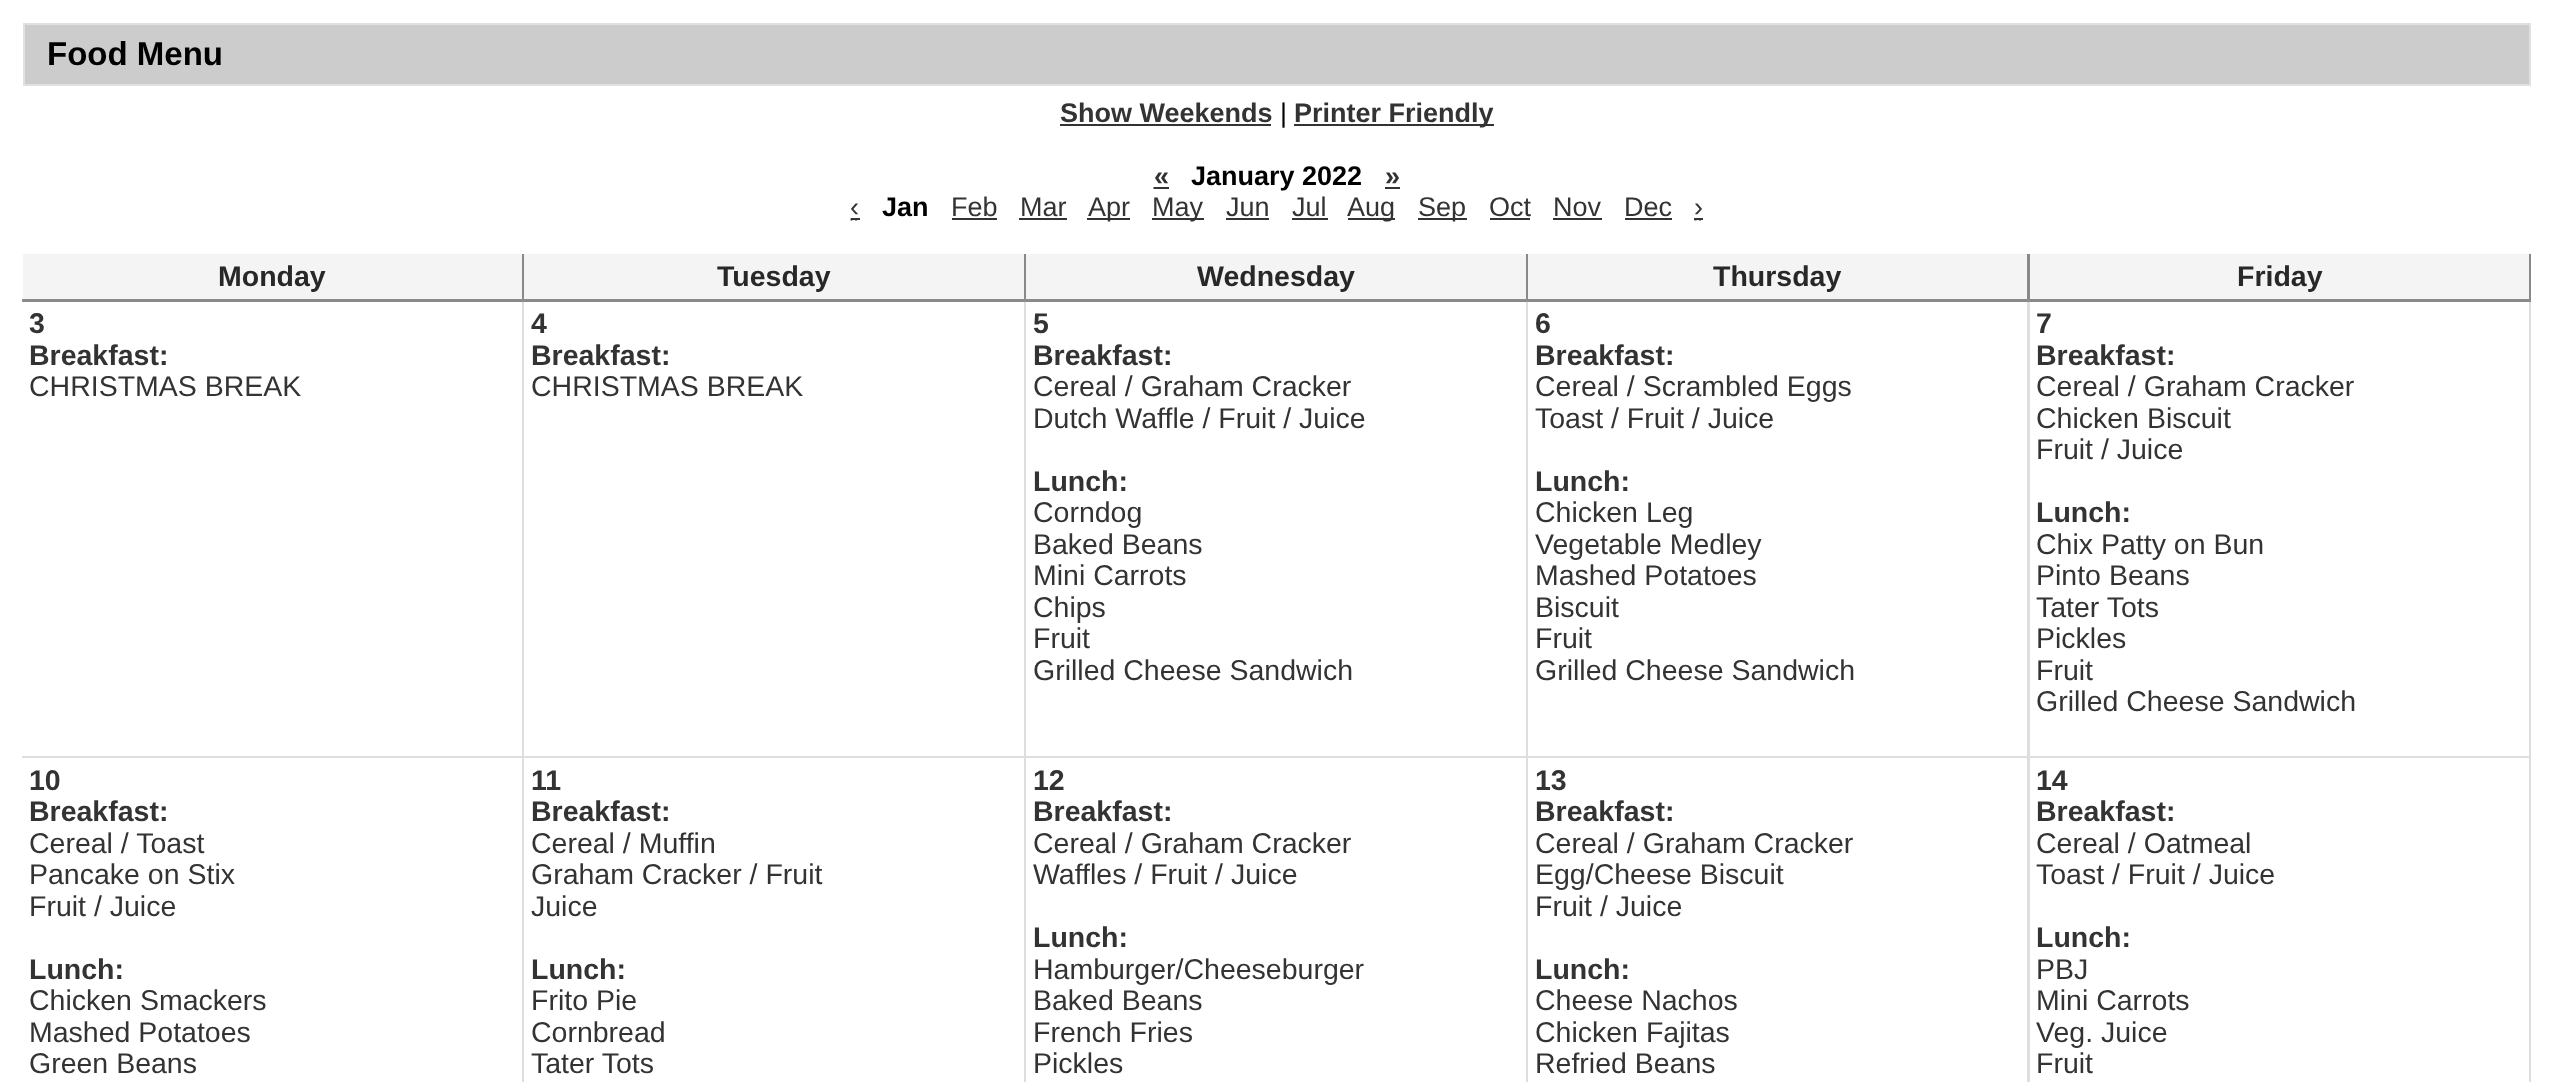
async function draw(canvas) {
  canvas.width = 2552
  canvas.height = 1082
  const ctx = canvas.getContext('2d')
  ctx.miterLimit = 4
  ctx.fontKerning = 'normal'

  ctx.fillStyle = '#fff'
  ctx.fillRect(0, 0, 2552, 1082)
  ctx.fillStyle = '#ccc'
  ctx.beginPath()
  ctx.rect(24, 24, 2506, 61)
  ctx.fill()
  ctx.strokeStyle = '#e1e1e1'
  ctx.lineWidth = 2
  ctx.stroke()
  ctx.font = 'bold 33px Liberation Sans'
  ctx.fillStyle = '#000'
  ctx.fillText('Food Menu', 47, 65)
  ctx.font = 'bold 27px Liberation Sans'
  ctx.fillStyle = '#333'
  ctx.fillText('Show Weekends', 1060, 122)
  ctx.fillRect(1060, 124, 211, 2)
  ctx.font = '27px Liberation Sans'
  ctx.fillStyle = '#000'
  ctx.fillText('|', 1280, 122)
  ctx.fillStyle = '#333'
  ctx.fillRect(1294, 124, 200, 2)
  ctx.font = 'bold 27px Liberation Sans'
  ctx.fillText('Printer Friendly', 1294, 122)
  ctx.fillText('«', 1154, 185)
  ctx.beginPath()
  ctx.moveTo(1153.5, 188)
  ctx.lineTo(1156, 188)
  ctx.moveTo(1158, 188)
  ctx.lineTo(1160.5, 188)
  ctx.moveTo(1162.5, 188)
  ctx.lineTo(1165, 188)
  ctx.moveTo(1167, 188)
  ctx.lineTo(1169, 188)
  ctx.strokeStyle = '#333'
  ctx.lineWidth = 2.2
  ctx.stroke()
  ctx.fillRect(1154, 187, 14, 2)
  ctx.fillStyle = '#000'
  ctx.fillText('January 2022', 1191, 185)
  ctx.fillStyle = '#333'
  ctx.fillText('»', 1385, 185)
  ctx.beginPath()
  ctx.moveTo(1385, 188)
  ctx.lineTo(1387, 188)
  ctx.moveTo(1389.5, 188)
  ctx.lineTo(1391.5, 188)
  ctx.moveTo(1394, 188)
  ctx.lineTo(1396, 188)
  ctx.moveTo(1398.5, 188)
  ctx.lineTo(1400, 188)
  ctx.stroke()
  ctx.fillRect(1386, 187, 14, 2)
  ctx.font = '27px Liberation Sans'
  ctx.fillText('‹', 850, 216)
  ctx.beginPath()
  ctx.moveTo(850.5, 219.5)
  ctx.lineTo(852.5, 219.5)
  ctx.moveTo(855, 219.5)
  ctx.lineTo(857, 219.5)
  ctx.stroke()
  ctx.fillRect(851, 218, 9, 2)
  ctx.font = 'bold 27px Liberation Sans'
  ctx.fillStyle = '#000'
  ctx.fillText('Jan', 882, 216)
  ctx.font = '27px Liberation Sans'
  ctx.fillStyle = '#333'
  ctx.fillText('Feb', 951, 216)
  ctx.fillRect(952, 218, 45, 2)
  ctx.fillText('Mar', 1020, 216)
  ctx.fillRect(1019, 218, 48, 2)
  ctx.fillRect(1087, 218, 43, 2)
  ctx.fillText('Apr', 1088, 216)
  ctx.fillRect(1152, 218, 52, 2)
  ctx.fillText('May', 1152, 216)
  ctx.fillText('Jun', 1226, 216)
  ctx.fillRect(1226, 218, 43, 2)
  ctx.fillText('Jul', 1292, 216)
  ctx.fillRect(1292, 218, 36, 2)
  ctx.fillRect(1348, 218, 47, 2)
  ctx.fillText('Aug', 1347, 216)
  ctx.fillRect(1418, 218, 49, 2)
  ctx.fillText('Sep', 1418, 216)
  ctx.fillText('Oct', 1489, 216)
  ctx.fillRect(1490, 218, 40, 2)
  ctx.fillText('Nov', 1553, 216)
  ctx.fillRect(1553, 218, 49, 2)
  ctx.fillText('Dec', 1624, 216)
  ctx.fillRect(1625, 218, 47, 2)
  ctx.fillText('›', 1694, 216)
  ctx.beginPath()
  ctx.moveTo(1694.5, 219.5)
  ctx.lineTo(1696.5, 219.5)
  ctx.moveTo(1699, 219.5)
  ctx.lineTo(1701, 219.5)
  ctx.stroke()
  ctx.fillRect(1694, 218, 9, 2)
  ctx.fillStyle = '#f4f4f4'
  ctx.fillRect(23, 254, 2508, 48)
  ctx.fillStyle = '#898989'
  ctx.beginPath()
  ctx.moveTo(524, 254)
  ctx.lineTo(524, 302)
  ctx.lineTo(522, 299)
  ctx.lineTo(522, 254)
  ctx.closePath()
  ctx.fill()
  ctx.fillStyle = '#00000070'
  ctx.beginPath()
  ctx.moveTo(524, 302)
  ctx.lineTo(22, 302)
  ctx.lineTo(22, 299)
  ctx.lineTo(522, 299)
  ctx.closePath()
  ctx.fill()
  ctx.font = 'bold 28.5px Liberation Sans'
  ctx.fillStyle = '#282828'
  ctx.fillText('Monday', 218, 286)
  ctx.fillStyle = '#898989'
  ctx.beginPath()
  ctx.moveTo(1026, 254)
  ctx.lineTo(1026, 302)
  ctx.lineTo(1024, 299)
  ctx.lineTo(1024, 254)
  ctx.closePath()
  ctx.fill()
  ctx.fillStyle = '#00000070'
  ctx.beginPath()
  ctx.moveTo(1026, 302)
  ctx.lineTo(524, 302)
  ctx.lineTo(524, 299)
  ctx.lineTo(1024, 299)
  ctx.closePath()
  ctx.fill()
  ctx.fillStyle = '#282828'
  ctx.fillText('Tuesday', 717, 286)
  ctx.fillStyle = '#898989'
  ctx.beginPath()
  ctx.moveTo(1528, 254)
  ctx.lineTo(1528, 302)
  ctx.lineTo(1526, 299)
  ctx.lineTo(1526, 254)
  ctx.closePath()
  ctx.fill()
  ctx.fillStyle = '#00000070'
  ctx.beginPath()
  ctx.moveTo(1528, 302)
  ctx.lineTo(1026, 302)
  ctx.lineTo(1026, 299)
  ctx.lineTo(1526, 299)
  ctx.closePath()
  ctx.fill()
  ctx.fillStyle = '#282828'
  ctx.fillText('Wednesday', 1197, 286)
  ctx.fillStyle = '#898989'
  ctx.beginPath()
  ctx.moveTo(2030, 254)
  ctx.lineTo(2030, 302)
  ctx.lineTo(2027, 299)
  ctx.lineTo(2027, 254)
  ctx.closePath()
  ctx.fill()
  ctx.fillStyle = '#00000070'
  ctx.beginPath()
  ctx.moveTo(2030, 302)
  ctx.lineTo(1528, 302)
  ctx.lineTo(1528, 299)
  ctx.lineTo(2027, 299)
  ctx.closePath()
  ctx.fill()
  ctx.fillStyle = '#282828'
  ctx.fillText('Thursday', 1713, 286)
  ctx.fillStyle = '#898989'
  ctx.beginPath()
  ctx.moveTo(2531, 254)
  ctx.lineTo(2531, 302)
  ctx.lineTo(2529, 299)
  ctx.lineTo(2529, 254)
  ctx.closePath()
  ctx.fill()
  ctx.fillStyle = '#00000070'
  ctx.beginPath()
  ctx.moveTo(2531, 302)
  ctx.lineTo(2030, 302)
  ctx.lineTo(2030, 299)
  ctx.lineTo(2529, 299)
  ctx.closePath()
  ctx.fill()
  ctx.fillStyle = '#282828'
  ctx.fillText('Friday', 2237, 286)
  ctx.fillStyle = '#dedede'
  ctx.beginPath()
  ctx.moveTo(524, 302)
  ctx.lineTo(524, 758)
  ctx.lineTo(522, 756)
  ctx.lineTo(522, 302)
  ctx.closePath()
  ctx.fill()
  ctx.fillStyle = '#00000021'
  ctx.beginPath()
  ctx.moveTo(524, 758)
  ctx.lineTo(22, 758)
  ctx.lineTo(22, 756)
  ctx.lineTo(522, 756)
  ctx.closePath()
  ctx.fill()
  ctx.fillStyle = '#333'
  ctx.fillText('3', 29, 333)
  ctx.fillText('Breakfast:', 29, 365)
  ctx.font = '28.5px Liberation Sans'
  ctx.fillText('CHRISTMAS BREAK', 29, 396)
  ctx.fillStyle = '#dedede'
  ctx.beginPath()
  ctx.moveTo(1026, 302)
  ctx.lineTo(1026, 758)
  ctx.lineTo(1024, 756)
  ctx.lineTo(1024, 302)
  ctx.closePath()
  ctx.fill()
  ctx.fillStyle = '#00000021'
  ctx.beginPath()
  ctx.moveTo(1026, 758)
  ctx.lineTo(524, 758)
  ctx.lineTo(524, 756)
  ctx.lineTo(1024, 756)
  ctx.closePath()
  ctx.fill()
  ctx.font = 'bold 28.5px Liberation Sans'
  ctx.fillStyle = '#333'
  ctx.fillText('4', 531, 333)
  ctx.fillText('Breakfast:', 531, 365)
  ctx.font = '28.5px Liberation Sans'
  ctx.fillText('CHRISTMAS BREAK', 531, 396)
  ctx.fillStyle = '#dedede'
  ctx.beginPath()
  ctx.moveTo(1528, 302)
  ctx.lineTo(1528, 758)
  ctx.lineTo(1526, 756)
  ctx.lineTo(1526, 302)
  ctx.closePath()
  ctx.fill()
  ctx.fillStyle = '#00000021'
  ctx.beginPath()
  ctx.moveTo(1528, 758)
  ctx.lineTo(1026, 758)
  ctx.lineTo(1026, 756)
  ctx.lineTo(1526, 756)
  ctx.closePath()
  ctx.fill()
  ctx.font = 'bold 28.5px Liberation Sans'
  ctx.fillStyle = '#333'
  ctx.fillText('5', 1033, 333)
  ctx.fillText('Breakfast:', 1033, 365)
  ctx.font = '28.5px Liberation Sans'
  ctx.fillText('Cereal / Graham Cracker', 1033, 396)
  ctx.fillText('Dutch Waffle / Fruit / Juice', 1033, 428)
  ctx.font = 'bold 28.5px Liberation Sans'
  ctx.fillText('Lunch:', 1033, 491)
  ctx.font = '28.5px Liberation Sans'
  ctx.fillText('Corndog', 1033, 522)
  ctx.fillText('Baked Beans', 1033, 554)
  ctx.fillText('Mini Carrots', 1033, 585)
  ctx.fillText('Chips', 1033, 617)
  ctx.fillText('Fruit', 1033, 648)
  ctx.fillText('Grilled Cheese Sandwich', 1033, 680)
  ctx.fillStyle = '#dedede'
  ctx.beginPath()
  ctx.moveTo(2030, 302)
  ctx.lineTo(2030, 758)
  ctx.lineTo(2027, 756)
  ctx.lineTo(2027, 302)
  ctx.closePath()
  ctx.fill()
  ctx.fillStyle = '#00000021'
  ctx.beginPath()
  ctx.moveTo(2030, 758)
  ctx.lineTo(1528, 758)
  ctx.lineTo(1528, 756)
  ctx.lineTo(2027, 756)
  ctx.closePath()
  ctx.fill()
  ctx.font = 'bold 28.5px Liberation Sans'
  ctx.fillStyle = '#333'
  ctx.fillText('6', 1535, 333)
  ctx.fillText('Breakfast:', 1535, 365)
  ctx.font = '28.5px Liberation Sans'
  ctx.fillText('Cereal / Scrambled Eggs', 1535, 396)
  ctx.fillText('Toast / Fruit / Juice', 1535, 428)
  ctx.font = 'bold 28.5px Liberation Sans'
  ctx.fillText('Lunch:', 1535, 491)
  ctx.font = '28.5px Liberation Sans'
  ctx.fillText('Chicken Leg', 1535, 522)
  ctx.fillText('Vegetable Medley', 1535, 554)
  ctx.fillText('Mashed Potatoes', 1535, 585)
  ctx.fillText('Biscuit', 1535, 617)
  ctx.fillText('Fruit', 1535, 648)
  ctx.fillText('Grilled Cheese Sandwich', 1535, 680)
  ctx.fillStyle = '#dedede'
  ctx.beginPath()
  ctx.moveTo(2531, 302)
  ctx.lineTo(2531, 758)
  ctx.lineTo(2529, 756)
  ctx.lineTo(2529, 302)
  ctx.closePath()
  ctx.fill()
  ctx.fillStyle = '#00000021'
  ctx.beginPath()
  ctx.moveTo(2531, 758)
  ctx.lineTo(2030, 758)
  ctx.lineTo(2030, 756)
  ctx.lineTo(2529, 756)
  ctx.closePath()
  ctx.fill()
  ctx.font = 'bold 28.5px Liberation Sans'
  ctx.fillStyle = '#333'
  ctx.fillText('7', 2036, 333)
  ctx.fillText('Breakfast:', 2036, 365)
  ctx.font = '28.5px Liberation Sans'
  ctx.fillText('Cereal / Graham Cracker', 2036, 396)
  ctx.fillText('Chicken Biscuit', 2036, 428)
  ctx.fillText('Fruit / Juice', 2036, 459)
  ctx.font = 'bold 28.5px Liberation Sans'
  ctx.fillText('Lunch:', 2036, 522)
  ctx.font = '28.5px Liberation Sans'
  ctx.fillText('Chix Patty on Bun', 2036, 554)
  ctx.fillText('Pinto Beans', 2036, 585)
  ctx.fillText('Tater Tots', 2036, 617)
  ctx.fillText('Pickles', 2036, 648)
  ctx.fillText('Fruit', 2036, 680)
  ctx.fillText('Grilled Cheese Sandwich', 2036, 711)
  ctx.fillStyle = '#dedede'
  ctx.beginPath()
  ctx.moveTo(524, 758)
  ctx.lineTo(524, 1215)
  ctx.lineTo(522, 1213)
  ctx.lineTo(522, 758)
  ctx.closePath()
  ctx.fill()
  ctx.font = 'bold 28.5px Liberation Sans'
  ctx.fillStyle = '#333'
  ctx.fillText('10', 29, 790)
  ctx.fillText('Breakfast:', 29, 821)
  ctx.font = '28.5px Liberation Sans'
  ctx.fillText('Cereal / Toast', 29, 853)
  ctx.fillText('Pancake on Stix', 29, 884)
  ctx.fillText('Fruit / Juice', 29, 916)
  ctx.font = 'bold 28.5px Liberation Sans'
  ctx.fillText('Lunch:', 29, 979)
  ctx.font = '28.5px Liberation Sans'
  ctx.fillText('Chicken Smackers', 29, 1010)
  ctx.fillText('Mashed Potatoes', 29, 1042)
  ctx.fillText('Green Beans', 29, 1073)
  ctx.fillStyle = '#dedede'
  ctx.beginPath()
  ctx.moveTo(1026, 758)
  ctx.lineTo(1026, 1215)
  ctx.lineTo(1024, 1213)
  ctx.lineTo(1024, 758)
  ctx.closePath()
  ctx.fill()
  ctx.font = 'bold 28.5px Liberation Sans'
  ctx.fillStyle = '#333'
  ctx.fillText('11', 531, 790)
  ctx.fillText('Breakfast:', 531, 821)
  ctx.font = '28.5px Liberation Sans'
  ctx.fillText('Cereal / Muffin', 531, 853)
  ctx.fillText('Graham Cracker / Fruit', 531, 884)
  ctx.fillText('Juice', 531, 916)
  ctx.font = 'bold 28.5px Liberation Sans'
  ctx.fillText('Lunch:', 531, 979)
  ctx.font = '28.5px Liberation Sans'
  ctx.fillText('Frito Pie', 531, 1010)
  ctx.fillText('Cornbread', 531, 1042)
  ctx.fillText('Tater Tots', 531, 1073)
  ctx.fillStyle = '#dedede'
  ctx.beginPath()
  ctx.moveTo(1528, 758)
  ctx.lineTo(1528, 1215)
  ctx.lineTo(1526, 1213)
  ctx.lineTo(1526, 758)
  ctx.closePath()
  ctx.fill()
  ctx.font = 'bold 28.5px Liberation Sans'
  ctx.fillStyle = '#333'
  ctx.fillText('12', 1033, 790)
  ctx.fillText('Breakfast:', 1033, 821)
  ctx.font = '28.5px Liberation Sans'
  ctx.fillText('Cereal / Graham Cracker', 1033, 853)
  ctx.fillText('Waffles / Fruit / Juice', 1033, 884)
  ctx.font = 'bold 28.5px Liberation Sans'
  ctx.fillText('Lunch:', 1033, 947)
  ctx.font = '28.5px Liberation Sans'
  ctx.fillText('Hamburger/Cheeseburger', 1033, 979)
  ctx.fillText('Baked Beans', 1033, 1010)
  ctx.fillText('French Fries', 1033, 1042)
  ctx.fillText('Pickles', 1033, 1073)
  ctx.fillStyle = '#dedede'
  ctx.beginPath()
  ctx.moveTo(2030, 758)
  ctx.lineTo(2030, 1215)
  ctx.lineTo(2027, 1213)
  ctx.lineTo(2027, 758)
  ctx.closePath()
  ctx.fill()
  ctx.font = 'bold 28.5px Liberation Sans'
  ctx.fillStyle = '#333'
  ctx.fillText('13', 1535, 790)
  ctx.fillText('Breakfast:', 1535, 821)
  ctx.font = '28.5px Liberation Sans'
  ctx.fillText('Cereal / Graham Cracker', 1535, 853)
  ctx.fillText('Egg/Cheese Biscuit', 1535, 884)
  ctx.fillText('Fruit / Juice', 1535, 916)
  ctx.font = 'bold 28.5px Liberation Sans'
  ctx.fillText('Lunch:', 1535, 979)
  ctx.font = '28.5px Liberation Sans'
  ctx.fillText('Cheese Nachos', 1535, 1010)
  ctx.fillText('Chicken Fajitas', 1535, 1042)
  ctx.fillText('Refried Beans', 1535, 1073)
  ctx.fillStyle = '#dedede'
  ctx.beginPath()
  ctx.moveTo(2531, 758)
  ctx.lineTo(2531, 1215)
  ctx.lineTo(2529, 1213)
  ctx.lineTo(2529, 758)
  ctx.closePath()
  ctx.fill()
  ctx.font = 'bold 28.5px Liberation Sans'
  ctx.fillStyle = '#333'
  ctx.fillText('14', 2036, 790)
  ctx.fillText('Breakfast:', 2036, 821)
  ctx.font = '28.5px Liberation Sans'
  ctx.fillText('Cereal / Oatmeal', 2036, 853)
  ctx.fillText('Toast / Fruit / Juice', 2036, 884)
  ctx.font = 'bold 28.5px Liberation Sans'
  ctx.fillText('Lunch:', 2036, 947)
  ctx.font = '28.5px Liberation Sans'
  ctx.fillText('PBJ', 2036, 979)
  ctx.fillText('Mini Carrots', 2036, 1010)
  ctx.fillText('Veg. Juice', 2036, 1042)
  ctx.fillText('Fruit', 2036, 1073)
}

draw(document.querySelector('canvas'))
